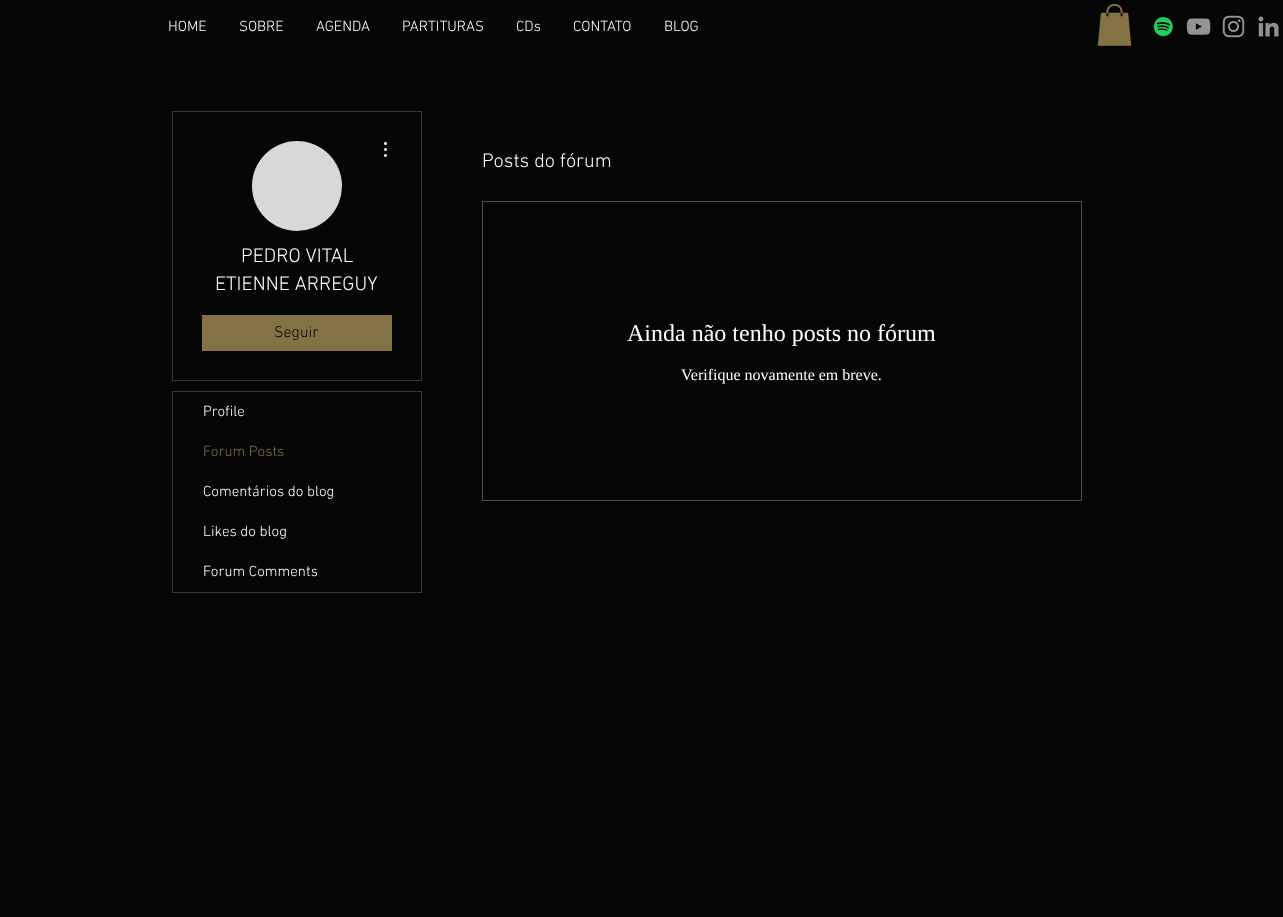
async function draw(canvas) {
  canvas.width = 1283
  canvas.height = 917
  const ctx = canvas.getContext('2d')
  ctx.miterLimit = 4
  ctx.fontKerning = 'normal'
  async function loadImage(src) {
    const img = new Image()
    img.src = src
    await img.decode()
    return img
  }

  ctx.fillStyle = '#050505'
  ctx.fillRect(0, 0, 1283, 917)
  ctx.font = '300 15px "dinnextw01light"'
  ctx.fillStyle = '#fff'
  ctx.fillText('HOME', 168, 31)
  ctx.fillText('SOBRE', 239, 31)
  ctx.fillText('AGENDA', 316, 31)
  ctx.fillText('PARTITURAS', 402, 31)
  ctx.fillText('CDs', 516, 31)
  ctx.fillText('CONTATO', 573, 31)
  ctx.fillText('BLOG', 664, 31)
  ctx.drawImage(await loadImage('image0.png'), 1097, 4, 35, 42)
  ctx.drawImage(await loadImage('image1.png'), 1153, 16, 20, 21)
  ctx.drawImage(await loadImage('image2.png'), 1186, 18, 25, 17)
  ctx.drawImage(await loadImage('image3.png'), 1222, 15, 23, 23)
  ctx.drawImage(await loadImage('image4.png'), 1258, 16, 21, 21)
  ctx.strokeStyle = '#373737'
  ctx.strokeRect(172.5, 111.5, 249, 269)
  ctx.fillStyle = '#d8d8d8'
  ctx.beginPath()
  ctx.arc(297, 186, 45, 0, 2 * Math.PI)
  ctx.fill()
  ctx.drawImage(await loadImage('image5.png'), 384, 142, 3, 15)
  ctx.font = '300 20px "dinnextw01light"'
  ctx.fillStyle = '#fff'
  ctx.fillText('PEDRO VITAL', 241, 262)
  ctx.fillText('ETIENNE ARREGUY', 215, 290)
  ctx.fillStyle = '#837244'
  ctx.fillRect(202, 315, 190, 36)
  ctx.font = '300 16px "dinnextw01light"'
  ctx.fillStyle = '#050505'
  ctx.fillText('Seguir', 274, 337)
  ctx.strokeRect(172.5, 391.5, 249, 201)
  ctx.font = '300 15px "dinnextw01light"'
  ctx.fillStyle = '#fff'
  ctx.fillText('Profile', 203, 416)
  ctx.fillStyle = '#837244'
  ctx.fillText('Forum Posts', 203, 456)
  ctx.fillStyle = '#fff'
  ctx.fillText('Comentários do blog', 203, 496)
  ctx.fillText('Likes do blog', 203, 536)
  ctx.fillText('Forum Comments', 203, 576)
  ctx.font = '300 20px "dinnextw01light"'
  ctx.fillText('Posts do fórum', 482, 167)
  ctx.strokeStyle = '#505050'
  ctx.strokeRect(482.5, 201.5, 599, 299)
  ctx.font = '24px Liberation Serif'
  ctx.fillText('Ainda não tenho posts no fórum', 627, 341)
  ctx.font = '16px Liberation Serif'
  ctx.fillText('Verifique novamente em breve.', 681, 380)
}

draw(document.querySelector('canvas'))
